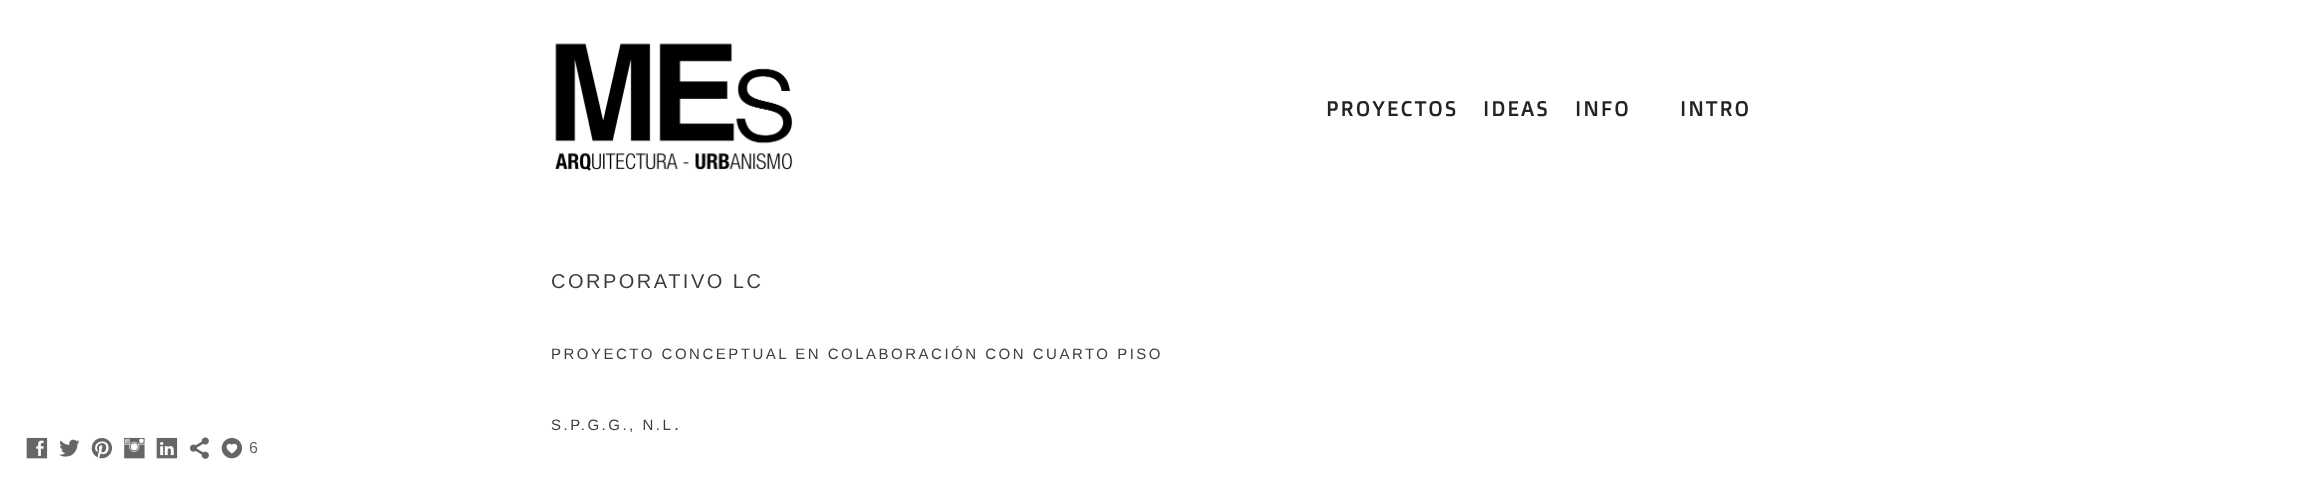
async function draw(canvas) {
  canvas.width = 2302
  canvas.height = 478
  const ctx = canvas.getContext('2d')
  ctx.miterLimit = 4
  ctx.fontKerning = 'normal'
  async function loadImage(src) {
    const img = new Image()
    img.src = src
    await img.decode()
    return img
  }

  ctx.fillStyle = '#fff'
  ctx.fillRect(0, 0, 2302, 478)
  ctx.drawImage(await loadImage('image0.png'), 555, 43, 238, 128)
  ctx.letterSpacing = '1.9px'
  ctx.font = '21.25px Doppio One'
  ctx.fillStyle = '#242424'
  ctx.fillText('PROYECTOS', 1326, 116)
  ctx.fillText('IDEAS', 1483, 116)
  ctx.fillText('INFO', 1575, 116)
  ctx.fillText('INTRO', 1680, 116)
  ctx.letterSpacing = '2.5px'
  ctx.font = '20px Liberation Sans'
  ctx.fillStyle = '#3d3d3d'
  ctx.fillText('CORPORATIVO LC', 551, 288)
  ctx.font = '15px Liberation Sans'
  ctx.fillText('PROYECTO CONCEPTUAL EN COLABORACIÓN CON CUARTO PISO', 551, 359)
  ctx.fillText('S.P.G.G., N.L', 551, 430)
  ctx.font = '18px Liberation Sans'
  ctx.fillText('.', 674, 430)
  ctx.drawImage(await loadImage('image1.png'), 26, 437, 22, 22)
  ctx.drawImage(await loadImage('image2.png'), 59, 439, 21, 18)
  ctx.drawImage(await loadImage('image3.png'), 91, 438, 21, 21)
  ctx.drawImage(await loadImage('image4.png'), 124, 437, 21, 22)
  ctx.drawImage(await loadImage('image5.png'), 156, 437, 22, 22)
  ctx.drawImage(await loadImage('image6.png'), 189, 437, 20, 22)
  ctx.drawImage(await loadImage('image7.png'), 221, 437, 22, 22)
  ctx.letterSpacing = '0px'
  ctx.font = '16px Liberation Sans'
  ctx.fillStyle = '#656666'
  ctx.fillText('6', 249, 453)
}

draw(document.querySelector('canvas'))
